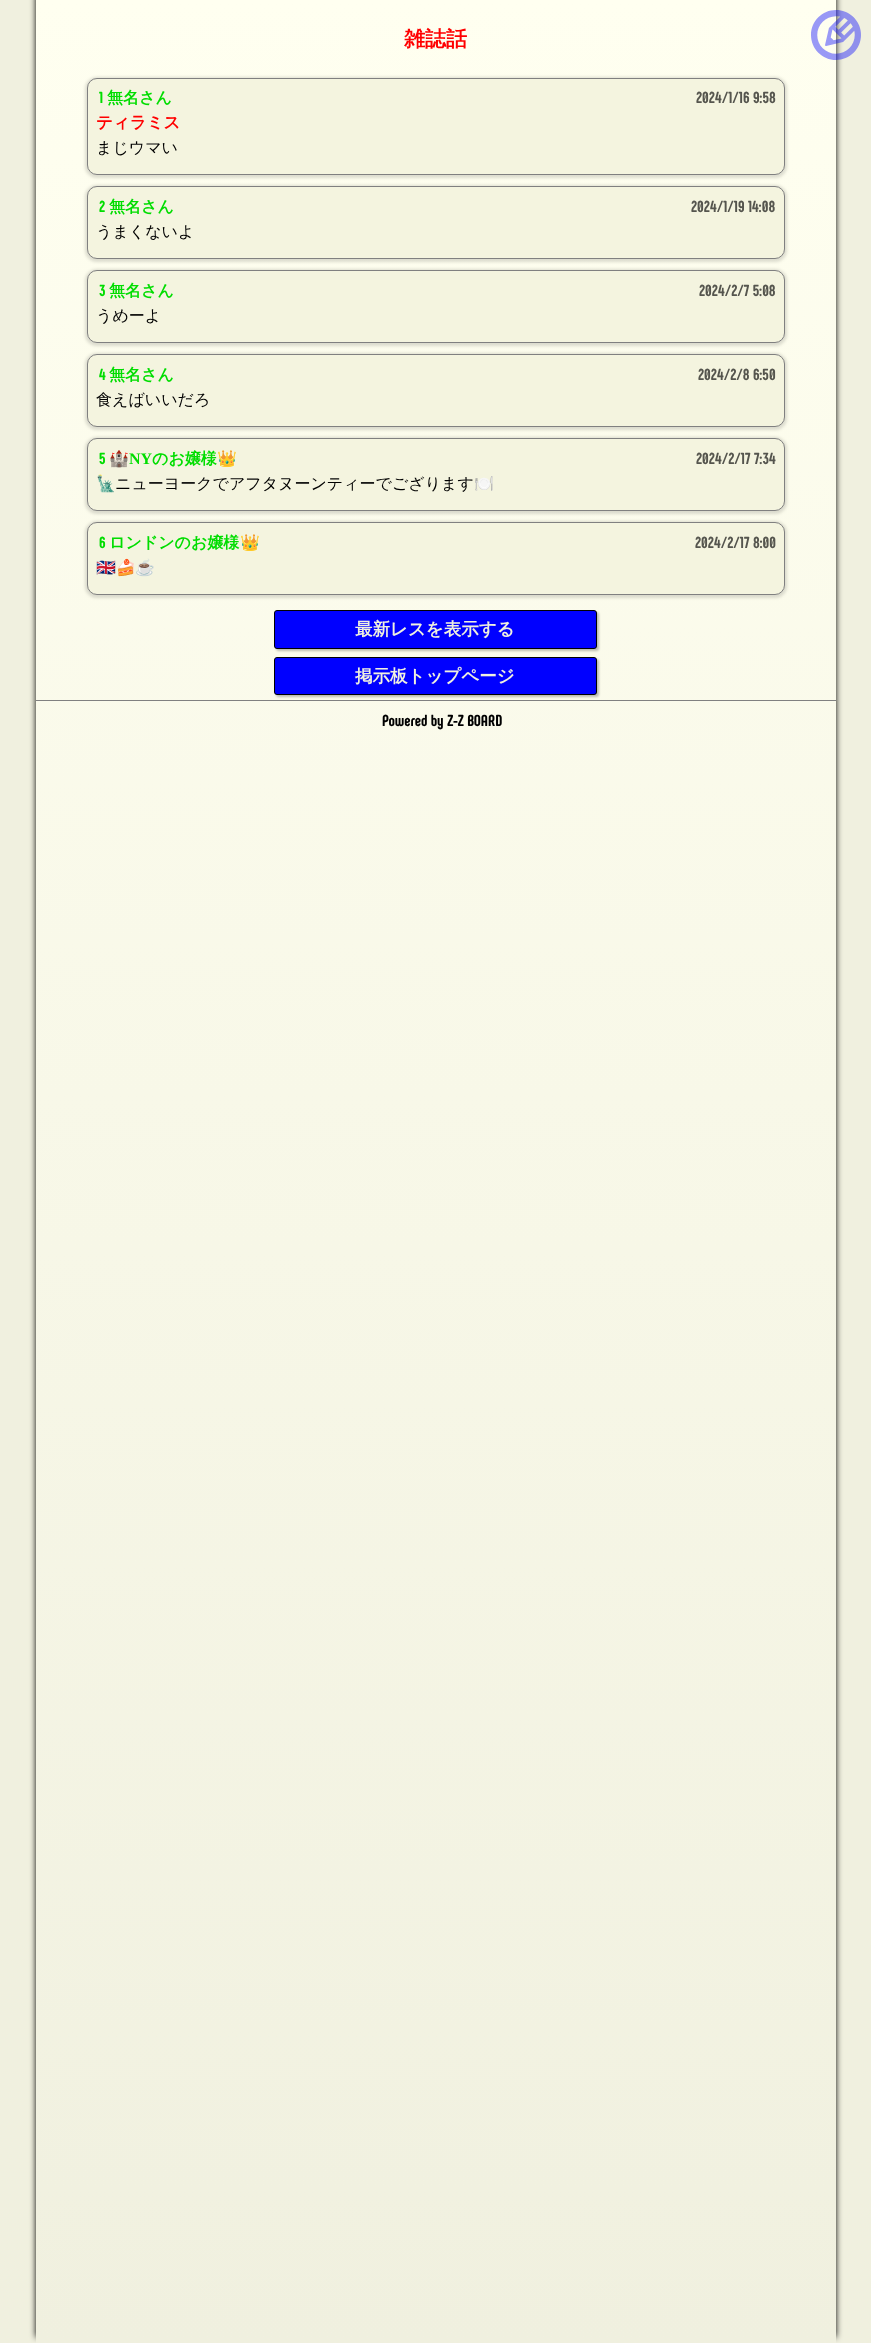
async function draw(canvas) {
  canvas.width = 871
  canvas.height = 2343
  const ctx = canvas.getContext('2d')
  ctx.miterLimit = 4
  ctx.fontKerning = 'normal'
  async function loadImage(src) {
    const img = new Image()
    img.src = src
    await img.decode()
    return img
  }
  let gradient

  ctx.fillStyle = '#f0f0df'
  ctx.fillRect(0, 0, 871, 2343)
  ctx.fillStyle = '#000'
  ctx.filter = 'blur(3px)'
  ctx.beginPath()
  ctx.rect(36, -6, 800, 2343)
  ctx.fill()
  ctx.filter = 'none'
  gradient = ctx.createLinearGradient(436, 0, 436, 2343)
  gradient.addColorStop(0, '#fffff0')
  gradient.addColorStop(1, '#f0f0df')
  ctx.fillStyle = gradient
  ctx.fillRect(36, 0, 800, 2343)
  ctx.font = 'bold 21px WenQuanYi Zen Hei'
  ctx.fillStyle = '#f00'
  ctx.fillText('雑誌話', 404, 46)
  ctx.drawImage(await loadImage('image0.png'), 811, 10, 50, 50)
  ctx.fillStyle = '#00000021'
  ctx.filter = 'blur(1.5px)'
  ctx.beginPath()
  ctx.roundRect(85, 77, 702, 101, 12)
  ctx.fill()
  ctx.filter = 'none'
  ctx.fillStyle = '#f4f4df'
  ctx.beginPath()
  ctx.roundRect(87.5, 78.5, 697, 96, 9.5)
  ctx.fill()
  ctx.strokeStyle = '#808080'
  ctx.stroke()
  ctx.font = '800 16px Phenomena'
  ctx.fillStyle = '#0d0'
  ctx.fillText('1', 99, 103)
  ctx.font = 'bold 16px WenQuanYi Zen Hei'
  ctx.fillText('無名さん', 107, 103)
  ctx.font = '800 16px Phenomena'
  ctx.fillStyle = '#55554e'
  ctx.fillText('2024/1/16 9:58', 696, 103)
  ctx.font = 'bold 16.5px WenQuanYi Zen Hei'
  ctx.fillStyle = '#f00'
  ctx.fillText('ティラミス', 96, 128)
  ctx.font = '500 16px WenQuanYi Zen Hei'
  ctx.fillStyle = '#000'
  ctx.fillText('まじウマい', 96, 153)
  ctx.fillStyle = '#00000021'
  ctx.filter = 'blur(1.5px)'
  ctx.beginPath()
  ctx.roundRect(85, 185, 702, 77, 12)
  ctx.fill()
  ctx.filter = 'none'
  ctx.fillStyle = '#f4f4df'
  ctx.beginPath()
  ctx.roundRect(87.5, 186.5, 697, 72, 9.5)
  ctx.fill()
  ctx.stroke()
  ctx.font = '800 16px Phenomena'
  ctx.fillStyle = '#0d0'
  ctx.fillText('2', 99, 212)
  ctx.font = 'bold 16px WenQuanYi Zen Hei'
  ctx.fillText('無名さん', 109, 212)
  ctx.font = '800 16px Phenomena'
  ctx.fillStyle = '#55554e'
  ctx.fillText('2024/1/19 14:08', 691, 212)
  ctx.font = '500 16px WenQuanYi Zen Hei'
  ctx.fillStyle = '#000'
  ctx.fillText('うまくないよ', 96, 237)
  ctx.fillStyle = '#00000021'
  ctx.filter = 'blur(1.5px)'
  ctx.beginPath()
  ctx.roundRect(85, 269, 702, 77, 12)
  ctx.fill()
  ctx.filter = 'none'
  ctx.fillStyle = '#f4f4df'
  ctx.beginPath()
  ctx.roundRect(87.5, 270.5, 697, 72, 9.5)
  ctx.fill()
  ctx.stroke()
  ctx.font = '800 16px Phenomena'
  ctx.fillStyle = '#0d0'
  ctx.fillText('3', 99, 296)
  ctx.font = 'bold 16px WenQuanYi Zen Hei'
  ctx.fillText('無名さん', 109, 296)
  ctx.font = '800 16px Phenomena'
  ctx.fillStyle = '#55554e'
  ctx.fillText('2024/2/7 5:08', 699, 296)
  ctx.font = '500 16px WenQuanYi Zen Hei'
  ctx.fillStyle = '#000'
  ctx.fillText('うめーよ', 96, 321)
  ctx.fillStyle = '#00000021'
  ctx.filter = 'blur(1.5px)'
  ctx.beginPath()
  ctx.roundRect(85, 353, 702, 77, 12)
  ctx.fill()
  ctx.filter = 'none'
  ctx.fillStyle = '#f4f4df'
  ctx.beginPath()
  ctx.roundRect(87.5, 354.5, 697, 72, 9.5)
  ctx.fill()
  ctx.stroke()
  ctx.font = '800 16px Phenomena'
  ctx.fillStyle = '#0d0'
  ctx.fillText('4', 99, 380)
  ctx.font = 'bold 16px WenQuanYi Zen Hei'
  ctx.fillText('無名さん', 109, 380)
  ctx.font = '800 16px Phenomena'
  ctx.fillStyle = '#55554e'
  ctx.fillText('2024/2/8 6:50', 698, 380)
  ctx.font = '500 16px WenQuanYi Zen Hei'
  ctx.fillStyle = '#000'
  ctx.fillText('食えばいいだろ', 96, 405)
  ctx.fillStyle = '#00000021'
  ctx.filter = 'blur(1.5px)'
  ctx.beginPath()
  ctx.roundRect(85, 437, 702, 77, 12)
  ctx.fill()
  ctx.filter = 'none'
  ctx.fillStyle = '#f4f4df'
  ctx.beginPath()
  ctx.roundRect(87.5, 438.5, 697, 72, 9.5)
  ctx.fill()
  ctx.stroke()
  ctx.font = '800 16px Phenomena'
  ctx.fillStyle = '#0d0'
  ctx.fillText('5', 99, 464)
  ctx.font = 'bold 16px Noto Color Emoji'
  ctx.fillText('🏰', 109, 464)
  ctx.font = 'bold 16px Liberation Serif'
  ctx.fillText('NY', 129, 464)
  ctx.font = 'bold 16px WenQuanYi Zen Hei'
  ctx.fillText('のお嬢様', 152, 464)
  ctx.font = 'bold 16px Noto Color Emoji'
  ctx.fillText('👑', 217, 464)
  ctx.font = '800 16px Phenomena'
  ctx.fillStyle = '#55554e'
  ctx.fillText('2024/2/17 7:34', 696, 464)
  ctx.font = '16px Noto Color Emoji'
  ctx.fillStyle = '#000'
  ctx.fillText('🗽', 96, 489)
  ctx.font = '500 16px WenQuanYi Zen Hei'
  ctx.fillText('ニューヨークでアフタヌーンティーでござります', 115, 489)
  ctx.font = '16px Noto Color Emoji'
  ctx.fillText('🍽️', 474, 489)
  ctx.fillStyle = '#00000021'
  ctx.filter = 'blur(1.5px)'
  ctx.beginPath()
  ctx.roundRect(85, 521, 702, 77, 12)
  ctx.fill()
  ctx.filter = 'none'
  ctx.fillStyle = '#f4f4df'
  ctx.beginPath()
  ctx.roundRect(87.5, 522.5, 697, 72, 9.5)
  ctx.fill()
  ctx.stroke()
  ctx.font = '800 16px Phenomena'
  ctx.fillStyle = '#0d0'
  ctx.fillText('6', 99, 548)
  ctx.font = 'bold 16px WenQuanYi Zen Hei'
  ctx.fillText('ロンドンのお嬢様', 109, 548)
  ctx.font = 'bold 16px Noto Color Emoji'
  ctx.fillText('👑', 240, 548)
  ctx.font = '800 16px Phenomena'
  ctx.fillStyle = '#55554e'
  ctx.fillText('2024/2/17 8:00', 695, 548)
  ctx.font = '16px Noto Color Emoji'
  ctx.fillStyle = '#000'
  ctx.fillText('🇬🇧🍰☕️', 96, 573)
  ctx.fillStyle = '#00000040'
  ctx.filter = 'blur(1px)'
  ctx.beginPath()
  ctx.roundRect(276, 612, 323, 39, 3)
  ctx.fill()
  ctx.filter = 'none'
  ctx.fillStyle = '#00f'
  ctx.beginPath()
  ctx.roundRect(274.5, 610.5, 322, 38, 2.5)
  ctx.fill()
  ctx.strokeStyle = '#000'
  ctx.stroke()
  ctx.font = 'bold 17.5px WenQuanYi Zen Hei'
  ctx.fillStyle = '#f0f0df'
  ctx.fillText('最新レスを表示する', 355, 635)
  ctx.fillStyle = '#00000040'
  ctx.filter = 'blur(1px)'
  ctx.beginPath()
  ctx.roundRect(276, 659, 323, 38, 3)
  ctx.fill()
  ctx.filter = 'none'
  ctx.fillStyle = '#00f'
  ctx.beginPath()
  ctx.roundRect(274.5, 657.5, 322, 37, 2.5)
  ctx.fill()
  ctx.stroke()
  ctx.fillStyle = '#f0f0df'
  ctx.fillText('掲示板トップページ', 355, 682)
  ctx.fillStyle = '#808080'
  ctx.fillRect(36, 700, 800, 1)
  ctx.font = '800 16px Phenomena'
  ctx.fillStyle = '#000'
  ctx.fillText('Powered by Z-Z BOARD', 382, 726)
}

draw(document.querySelector('canvas'))
